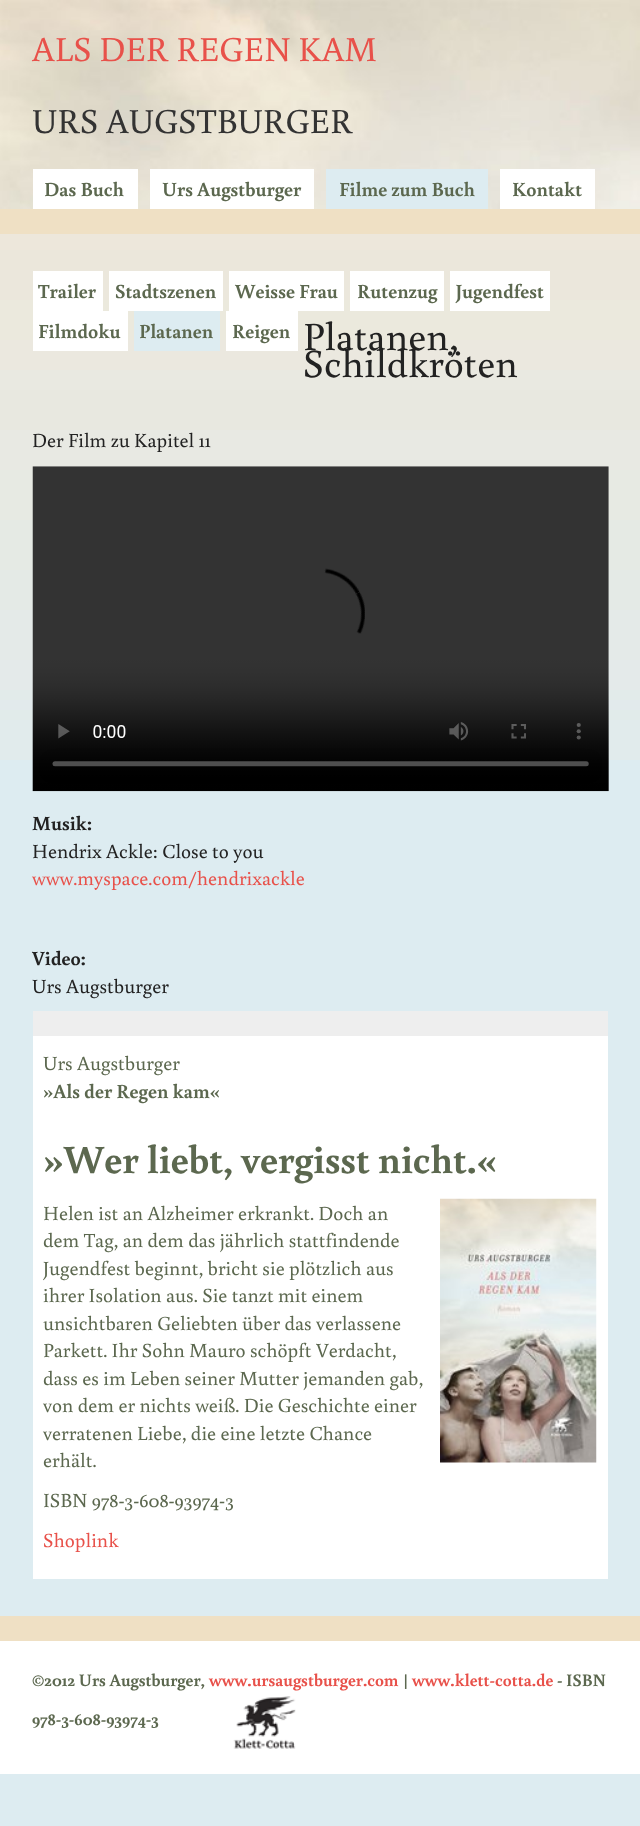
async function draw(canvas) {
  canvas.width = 640
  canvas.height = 1826
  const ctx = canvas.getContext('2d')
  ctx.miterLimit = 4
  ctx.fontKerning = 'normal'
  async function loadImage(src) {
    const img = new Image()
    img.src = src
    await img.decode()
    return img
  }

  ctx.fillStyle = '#ddecf1'
  ctx.fillRect(0, 0, 640, 1826)
  ctx.drawImage(await loadImage('image0.png'), 0, 234, 640, 526)
  ctx.drawImage(await loadImage('image1.png'), 0, 0, 640, 209)
  ctx.fillStyle = '#efe0c4'
  ctx.fillRect(0, 209, 640, 25)
  ctx.font = '35px Buenard'
  ctx.fillStyle = '#e8514a'
  ctx.fillText('ALS DER REGEN KAM', 32, 61)
  ctx.fillStyle = '#333'
  ctx.fillText('URS AUGSTBURGER', 32, 133)
  ctx.fillStyle = '#fff'
  ctx.fillRect(33, 169, 105, 40)
  ctx.font = 'bold 20px Buenard'
  ctx.fillStyle = '#5c684f'
  ctx.fillText('Das Buch', 44, 196)
  ctx.fillStyle = '#fff'
  ctx.fillRect(150, 169, 164, 40)
  ctx.fillStyle = '#5c684f'
  ctx.fillText('Urs Augstburger', 162, 196)
  ctx.fillStyle = '#ddecf1'
  ctx.fillRect(326, 169, 162, 40)
  ctx.fillStyle = '#5c684f'
  ctx.fillText('Filme zum Buch', 339, 196)
  ctx.fillStyle = '#fff'
  ctx.fillRect(500, 169, 95, 40)
  ctx.fillStyle = '#5c684f'
  ctx.fillText('Kontakt', 512, 196)
  ctx.fillStyle = '#fff'
  ctx.fillRect(33, 271, 70, 40)
  ctx.fillStyle = '#5c684f'
  ctx.fillText('Trailer', 38, 298)
  ctx.fillStyle = '#fff'
  ctx.fillRect(109, 271, 114, 40)
  ctx.fillStyle = '#5c684f'
  ctx.fillText('Stadtszenen', 115, 298)
  ctx.fillStyle = '#fff'
  ctx.fillRect(229, 271, 115, 40)
  ctx.fillStyle = '#5c684f'
  ctx.fillText('Weisse Frau', 235, 298)
  ctx.fillStyle = '#fff'
  ctx.fillRect(350, 271, 94, 40)
  ctx.fillStyle = '#5c684f'
  ctx.fillText('Rutenzug', 357, 298)
  ctx.fillStyle = '#fff'
  ctx.fillRect(450, 271, 100, 40)
  ctx.fillStyle = '#5c684f'
  ctx.fillText('Jugendfest', 456, 298)
  ctx.fillStyle = '#fff'
  ctx.fillRect(33, 311, 95, 40)
  ctx.fillStyle = '#5c684f'
  ctx.fillText('Filmdoku', 38, 338)
  ctx.fillStyle = '#ddecf1'
  ctx.fillRect(134, 311, 86, 40)
  ctx.fillStyle = '#5c684f'
  ctx.fillText('Platanen', 139, 338)
  ctx.fillStyle = '#fff'
  ctx.fillRect(226, 311, 72, 40)
  ctx.fillStyle = '#5c684f'
  ctx.fillText('Reigen', 232, 338)
  ctx.font = '40px Buenard'
  ctx.fillStyle = '#222'
  ctx.fillText('Platanen,', 303, 350)
  ctx.fillText('Schildkröten', 303, 377)
  ctx.font = '20px Buenard'
  ctx.fillText('Der Film zu Kapitel 11', 32, 447)
  ctx.drawImage(await loadImage('image2.png'), 32, 466, 577, 326)
  ctx.font = 'bold 20px Buenard'
  ctx.fillText('Musik:', 32, 830)
  ctx.font = '20px Buenard'
  ctx.fillText('Hendrix Ackle: Close to you', 32, 858)
  ctx.fillStyle = '#e8514a'
  ctx.fillText('www.myspace.com/hendrixackle', 32, 885)
  ctx.font = 'bold 20px Buenard'
  ctx.fillStyle = '#222'
  ctx.fillText('Video:', 32, 965)
  ctx.font = '20px Buenard'
  ctx.fillText('Urs Augstburger', 32, 993)
  ctx.fillStyle = '#fff'
  ctx.fillRect(33, 1036, 575, 543)
  ctx.fillStyle = '#eee'
  ctx.fillRect(33, 1011, 575, 25)
  ctx.fillStyle = '#5c684f'
  ctx.fillText('Urs Augstburger', 43, 1070)
  ctx.font = 'bold 20px Buenard'
  ctx.fillText('»Als der Regen kam«', 43, 1098)
  ctx.font = 'bold 40px Buenard'
  ctx.fillText('»Wer liebt, vergisst nicht.«', 43, 1173)
  ctx.font = '20px Buenard'
  ctx.fillText('Helen ist an Alzheimer erkrankt. Doch an', 43, 1220)
  ctx.fillText('dem Tag, an dem das jährlich stattfindende', 43, 1247)
  ctx.fillText('Jugendfest beginnt, bricht sie plötzlich aus', 43, 1275)
  ctx.fillText('ihrer Isolation aus. Sie tanzt mit einem', 43, 1302)
  ctx.fillText('unsichtbaren Geliebten über das verlassene', 43, 1330)
  ctx.fillText('Parkett. Ihr Sohn Mauro schöpft Verdacht,', 43, 1357)
  ctx.fillText('dass es im Leben seiner Mutter jemanden gab,', 43, 1385)
  ctx.fillText('von dem er nichts weiß. Die Geschichte einer', 43, 1412)
  ctx.fillText('verratenen Liebe, die eine letzte Chance', 43, 1440)
  ctx.fillText('erhält.', 43, 1467)
  ctx.fillText('ISBN 978-3-608-93974-3', 43, 1507)
  ctx.fillStyle = '#e8514a'
  ctx.fillText('Shoplink', 43, 1547)
  ctx.drawImage(await loadImage('image3.png'), 440, 1198, 157, 265)
  ctx.fillStyle = '#fff'
  ctx.fillRect(0, 1641, 640, 133)
  ctx.fillStyle = '#efe0c4'
  ctx.fillRect(0, 1616, 640, 25)
  ctx.font = 'bold 17.5px Buenard'
  ctx.fillStyle = '#5c684f'
  ctx.fillText('©2012 Urs Augstburger,', 32, 1686)
  ctx.fillStyle = '#e8514a'
  ctx.fillText('www.ursaugstburger.com', 209, 1686)
  ctx.fillStyle = '#5c684f'
  ctx.fillText('|', 403, 1686)
  ctx.fillStyle = '#e8514a'
  ctx.fillText('www.klett-cotta.de', 412, 1686)
  ctx.fillStyle = '#5c684f'
  ctx.fillText('- ISBN', 557, 1686)
  ctx.fillText('978-3-608-93974-3', 32, 1725)
  ctx.drawImage(await loadImage('image4.png'), 233, 1696, 63, 53)
}

draw(document.querySelector('canvas'))
